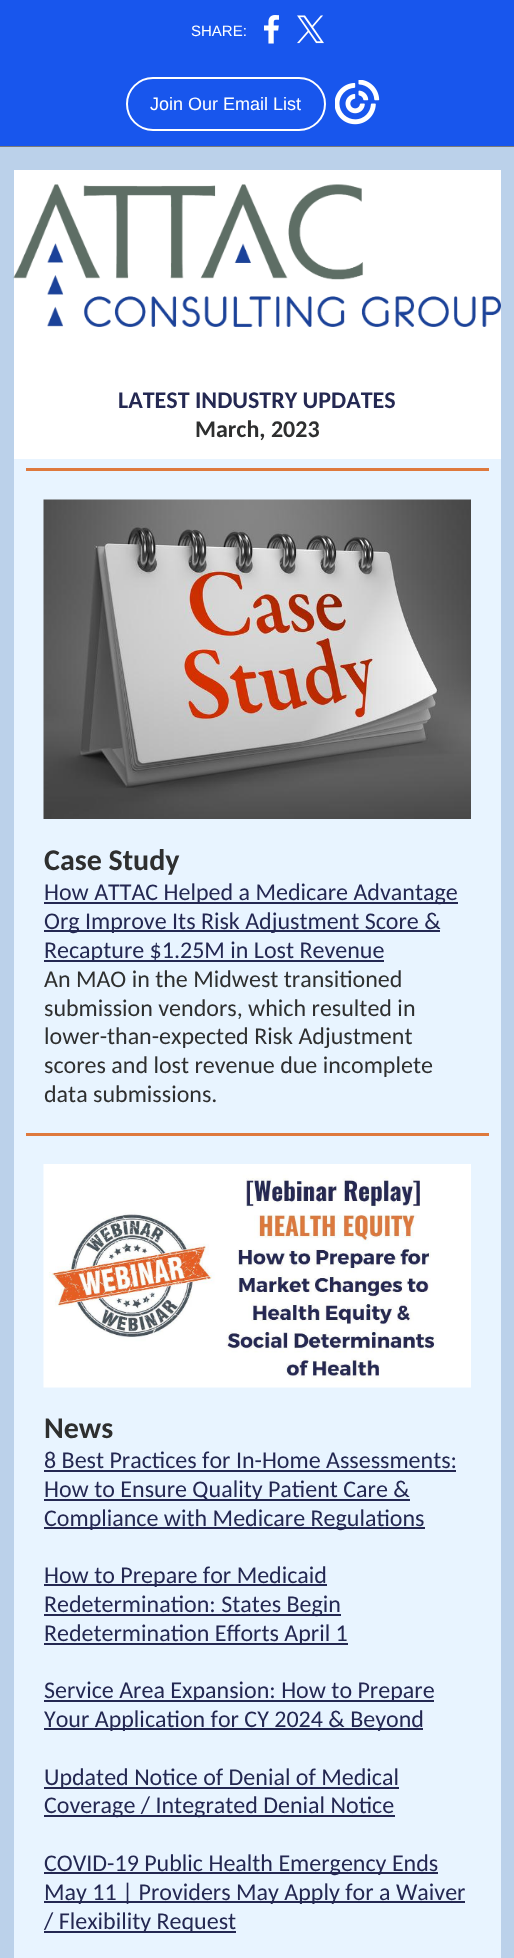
async function draw(canvas) {
  canvas.width = 514
  canvas.height = 1958
  const ctx = canvas.getContext('2d')
  ctx.miterLimit = 4
  ctx.fontKerning = 'none'
  async function loadImage(src) {
    const img = new Image()
    img.src = src
    await img.decode()
    return img
  }

  ctx.fillStyle = '#1856ed'
  ctx.fillRect(0, 0, 514, 1958)
  ctx.fillStyle = '#7a7a7a'
  ctx.fillRect(0, 146, 514, 1)
  ctx.font = '15px Liberation Sans'
  ctx.fillStyle = '#fff'
  ctx.fillText('SHARE:', 191, 36)
  ctx.drawImage(await loadImage('image0.png'), 264, 15, 15, 29)
  ctx.drawImage(await loadImage('image1.png'), 297, 15, 27, 29)
  ctx.beginPath()
  ctx.roundRect(127, 78, 198, 52, 26)
  ctx.strokeStyle = '#fff'
  ctx.lineWidth = 2
  ctx.stroke()
  ctx.font = '18px Liberation Sans'
  ctx.fillText('Join Our Email List', 150, 110)
  ctx.drawImage(await loadImage('image2.png'), 335, 80, 45, 45)
  ctx.fillStyle = '#bbd1ea'
  ctx.fillRect(0, 147, 514, 1811)
  ctx.fillStyle = '#e8f4ff'
  ctx.fillRect(14, 459, 487, 1499)
  ctx.fillStyle = '#fff'
  ctx.fillRect(14, 170, 487, 289)
  ctx.drawImage(await loadImage('image3.png'), 13, 184, 488, 143)
  ctx.font = 'bold 24px Carlito'
  ctx.fillStyle = '#242852'
  ctx.fillText('LATEST INDUSTRY UPDATES', 118, 408)
  ctx.fillStyle = '#2e2f2f'
  ctx.fillText('March, 2023', 195, 437)
  ctx.fillStyle = '#de793d'
  ctx.fillRect(26, 468, 463, 3)
  ctx.drawImage(await loadImage('image4.png'), 43, 499, 428, 320)
  ctx.font = 'bold 30px Carlito'
  ctx.fillStyle = '#2e2f2f'
  ctx.fillText('Case Study', 44, 870)
  ctx.fillStyle = '#242852'
  ctx.fillRect(44, 902, 414, 2)
  ctx.font = '24px Carlito'
  ctx.fillText('How ATTAC Helped a Medicare Advantage', 44, 900)
  ctx.fillRect(44, 930, 396, 2)
  ctx.fillText('Org Improve Its Risk Adjustment Score &', 44, 929)
  ctx.fillRect(44, 960, 340, 2)
  ctx.fillText('Recapture $1.25M in Lost Revenue', 44, 958)
  ctx.fillStyle = '#2e2f2f'
  ctx.fillText('An MAO in the Midwest transitioned', 44, 987)
  ctx.fillText('submission vendors, which resulted in', 44, 1016)
  ctx.fillText('lower-than-expected Risk Adjustment', 44, 1044)
  ctx.fillText('scores and lost revenue due incomplete', 44, 1073)
  ctx.fillText('data submissions.', 44, 1102)
  ctx.fillStyle = '#de793d'
  ctx.fillRect(26, 1133, 463, 3)
  ctx.drawImage(await loadImage('image5.png'), 43, 1164, 428, 224)
  ctx.font = 'bold 30px Carlito'
  ctx.fillStyle = '#2e2f2f'
  ctx.fillText('News', 44, 1438)
  ctx.font = '24px Carlito'
  ctx.fillStyle = '#242852'
  ctx.fillText('8 Best Practices for In-Home Assessments:', 44, 1468)
  ctx.fillRect(44, 1470, 412, 2)
  ctx.fillRect(44, 1499, 366, 2)
  ctx.fillText('How to Ensure Quality Patient Care &', 44, 1497)
  ctx.fillRect(44, 1527, 381, 2)
  ctx.fillText('Compliance with Medicare Regulations', 44, 1526)
  ctx.fillRect(44, 1584, 283, 2)
  ctx.fillText('How to Prepare for Medicaid', 44, 1583)
  ctx.fillRect(44, 1614, 297, 2)
  ctx.fillText('Redetermination: States Begin', 44, 1612)
  ctx.fillRect(44, 1643, 304, 2)
  ctx.fillText('Redetermination Efforts April 1', 44, 1641)
  ctx.fillRect(44, 1700, 390, 2)
  ctx.fillText('Service Area Expansion: How to Prepare', 44, 1698)
  ctx.fillRect(44, 1728, 379, 2)
  ctx.fillText('Your Application for CY 2024 & Beyond', 44, 1727)
  ctx.fillRect(44, 1787, 355, 2)
  ctx.fillText('Updated Notice of Denial of Medical', 44, 1785)
  ctx.fillRect(44, 1815, 351, 2)
  ctx.fillText('Coverage / Integrated Denial Notice', 44, 1813)
  ctx.fillRect(44, 1872, 394, 2)
  ctx.fillText('COVID-19 Public Health Emergency Ends', 44, 1871)
  ctx.fillRect(44, 1901, 421, 2)
  ctx.fillText('May 11 | Providers May Apply for a Waiver', 44, 1900)
  ctx.fillRect(44, 1931, 192, 2)
  ctx.fillText('/ Flexibility Request', 44, 1929)
}

draw(document.querySelector('canvas'))
